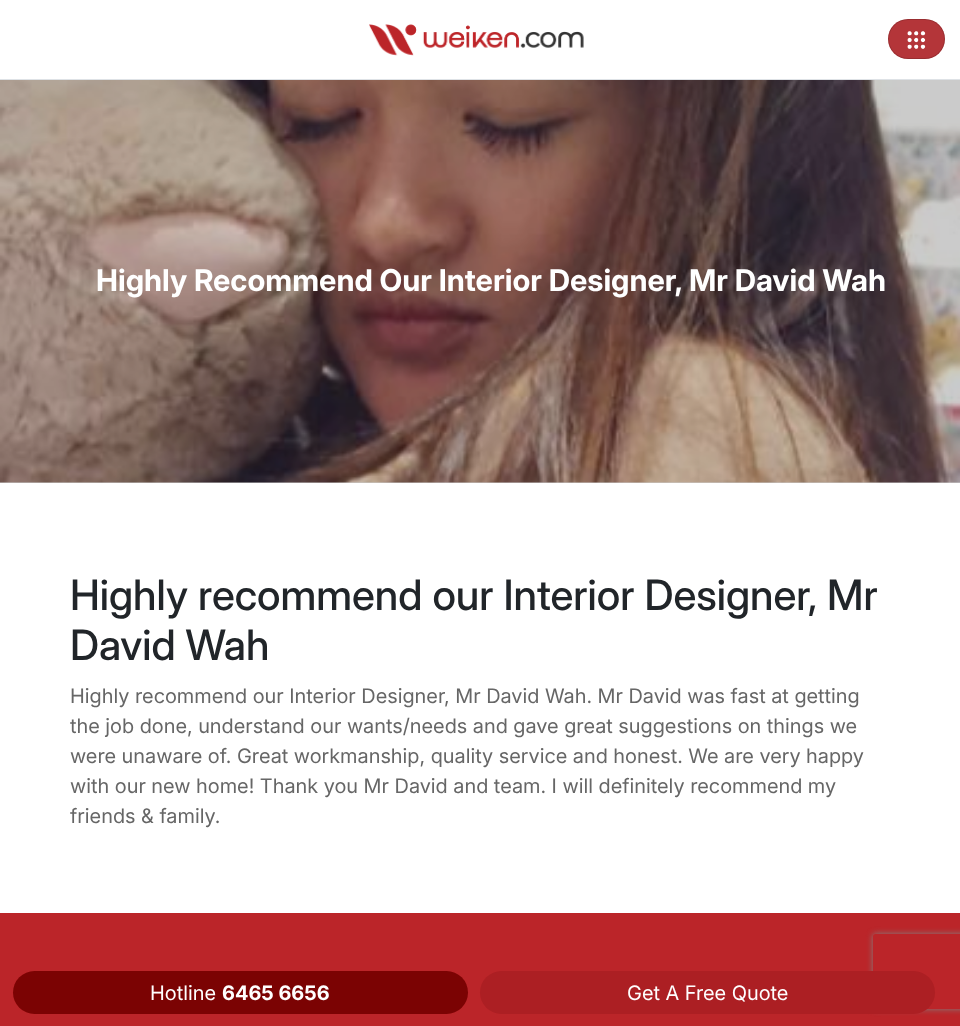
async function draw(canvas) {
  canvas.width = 960
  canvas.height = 1026
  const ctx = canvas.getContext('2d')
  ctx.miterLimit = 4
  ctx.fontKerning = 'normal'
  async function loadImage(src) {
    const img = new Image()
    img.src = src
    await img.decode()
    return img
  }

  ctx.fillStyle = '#fff'
  ctx.fillRect(0, 0, 960, 1026)
  ctx.fillStyle = '#ccc'
  ctx.fillRect(0, 482, 960, 1)
  ctx.fillStyle = '#dee2e6'
  ctx.fillRect(0, 79, 960, 1)
  ctx.drawImage(await loadImage('image0.png'), 369, 24, 215, 32)
  ctx.fillStyle = '#b43539'
  ctx.beginPath()
  ctx.roundRect(888, 19, 57, 40, 20)
  ctx.fill()
  ctx.beginPath()
  ctx.roundRect(888.5, 19.5, 56, 39, 19.5)
  ctx.strokeStyle = '#00000026'
  ctx.stroke()
  ctx.drawImage(await loadImage('image1.png'), 907, 31, 19, 18)
  ctx.drawImage(await loadImage('image2.png'), 0, 80, 960, 403)
  ctx.font = 'bold 30px Inter'
  ctx.fillStyle = '#fff'
  ctx.fillText('Highly Recommend Our Interior Designer, Mr David Wah', 96, 291)
  ctx.font = '500 41.9px Inter'
  ctx.fillStyle = '#212529'
  ctx.fillText('Highly recommend our Interior Designer, Mr', 70, 610)
  ctx.fillText('David Wah', 70, 660)
  ctx.font = '20px Inter'
  ctx.fillStyle = '#666'
  ctx.fillText('Highly recommend our Interior Designer, Mr David Wah. Mr David was fast at getting', 70, 703)
  ctx.fillText('the job done, understand our wants/needs and gave great suggestions on things we', 70, 733)
  ctx.fillText('were unaware of. Great workmanship, quality service and honest. We are very happy', 70, 763)
  ctx.fillText('with our new home! Thank you Mr David and team. I will definitely recommend my', 70, 793)
  ctx.fillText('friends & family.', 70, 823)
  ctx.fillStyle = '#bb2529'
  ctx.fillRect(0, 913, 960, 113)
  ctx.fillStyle = '#7b0303'
  ctx.beginPath()
  ctx.roundRect(13, 971, 455, 43, 21.5)
  ctx.fill()
  ctx.fillStyle = '#fff'
  ctx.fillText('Hotline', 150, 1000)
  ctx.font = 'bold 20px "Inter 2"'
  ctx.fillText('6465 6656', 222, 1000)
  ctx.save()
  ctx.beginPath()
  ctx.moveTo(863, 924)
  ctx.lineTo(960, 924)
  ctx.lineTo(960, 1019)
  ctx.lineTo(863, 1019)
  ctx.closePath()
  ctx.moveTo(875.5, 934)
  ctx.lineTo(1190.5, 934)
  ctx.bezierCurveTo(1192, 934, 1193, 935, 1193, 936.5)
  ctx.lineTo(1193, 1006.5)
  ctx.bezierCurveTo(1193, 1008, 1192, 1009, 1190.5, 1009)
  ctx.lineTo(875.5, 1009)
  ctx.bezierCurveTo(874, 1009, 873, 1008, 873, 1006.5)
  ctx.lineTo(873, 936.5)
  ctx.bezierCurveTo(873, 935, 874, 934, 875.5, 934)
  ctx.closePath()
  ctx.clip('evenodd')
  ctx.fillStyle = '#808080'
  ctx.filter = 'blur(3px)'
  ctx.beginPath()
  ctx.roundRect(873, 934, 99, 75, 2.5)
  ctx.fill()
  ctx.filter = 'none'
  ctx.restore()
  ctx.fillStyle = '#ac1f23'
  ctx.beginPath()
  ctx.roundRect(480, 971, 455, 43, 21.5)
  ctx.fill()
  ctx.font = '20px Inter'
  ctx.fillStyle = '#fff'
  ctx.fillText('Get A Free Quote', 627, 1000)
}

draw(document.querySelector('canvas'))
